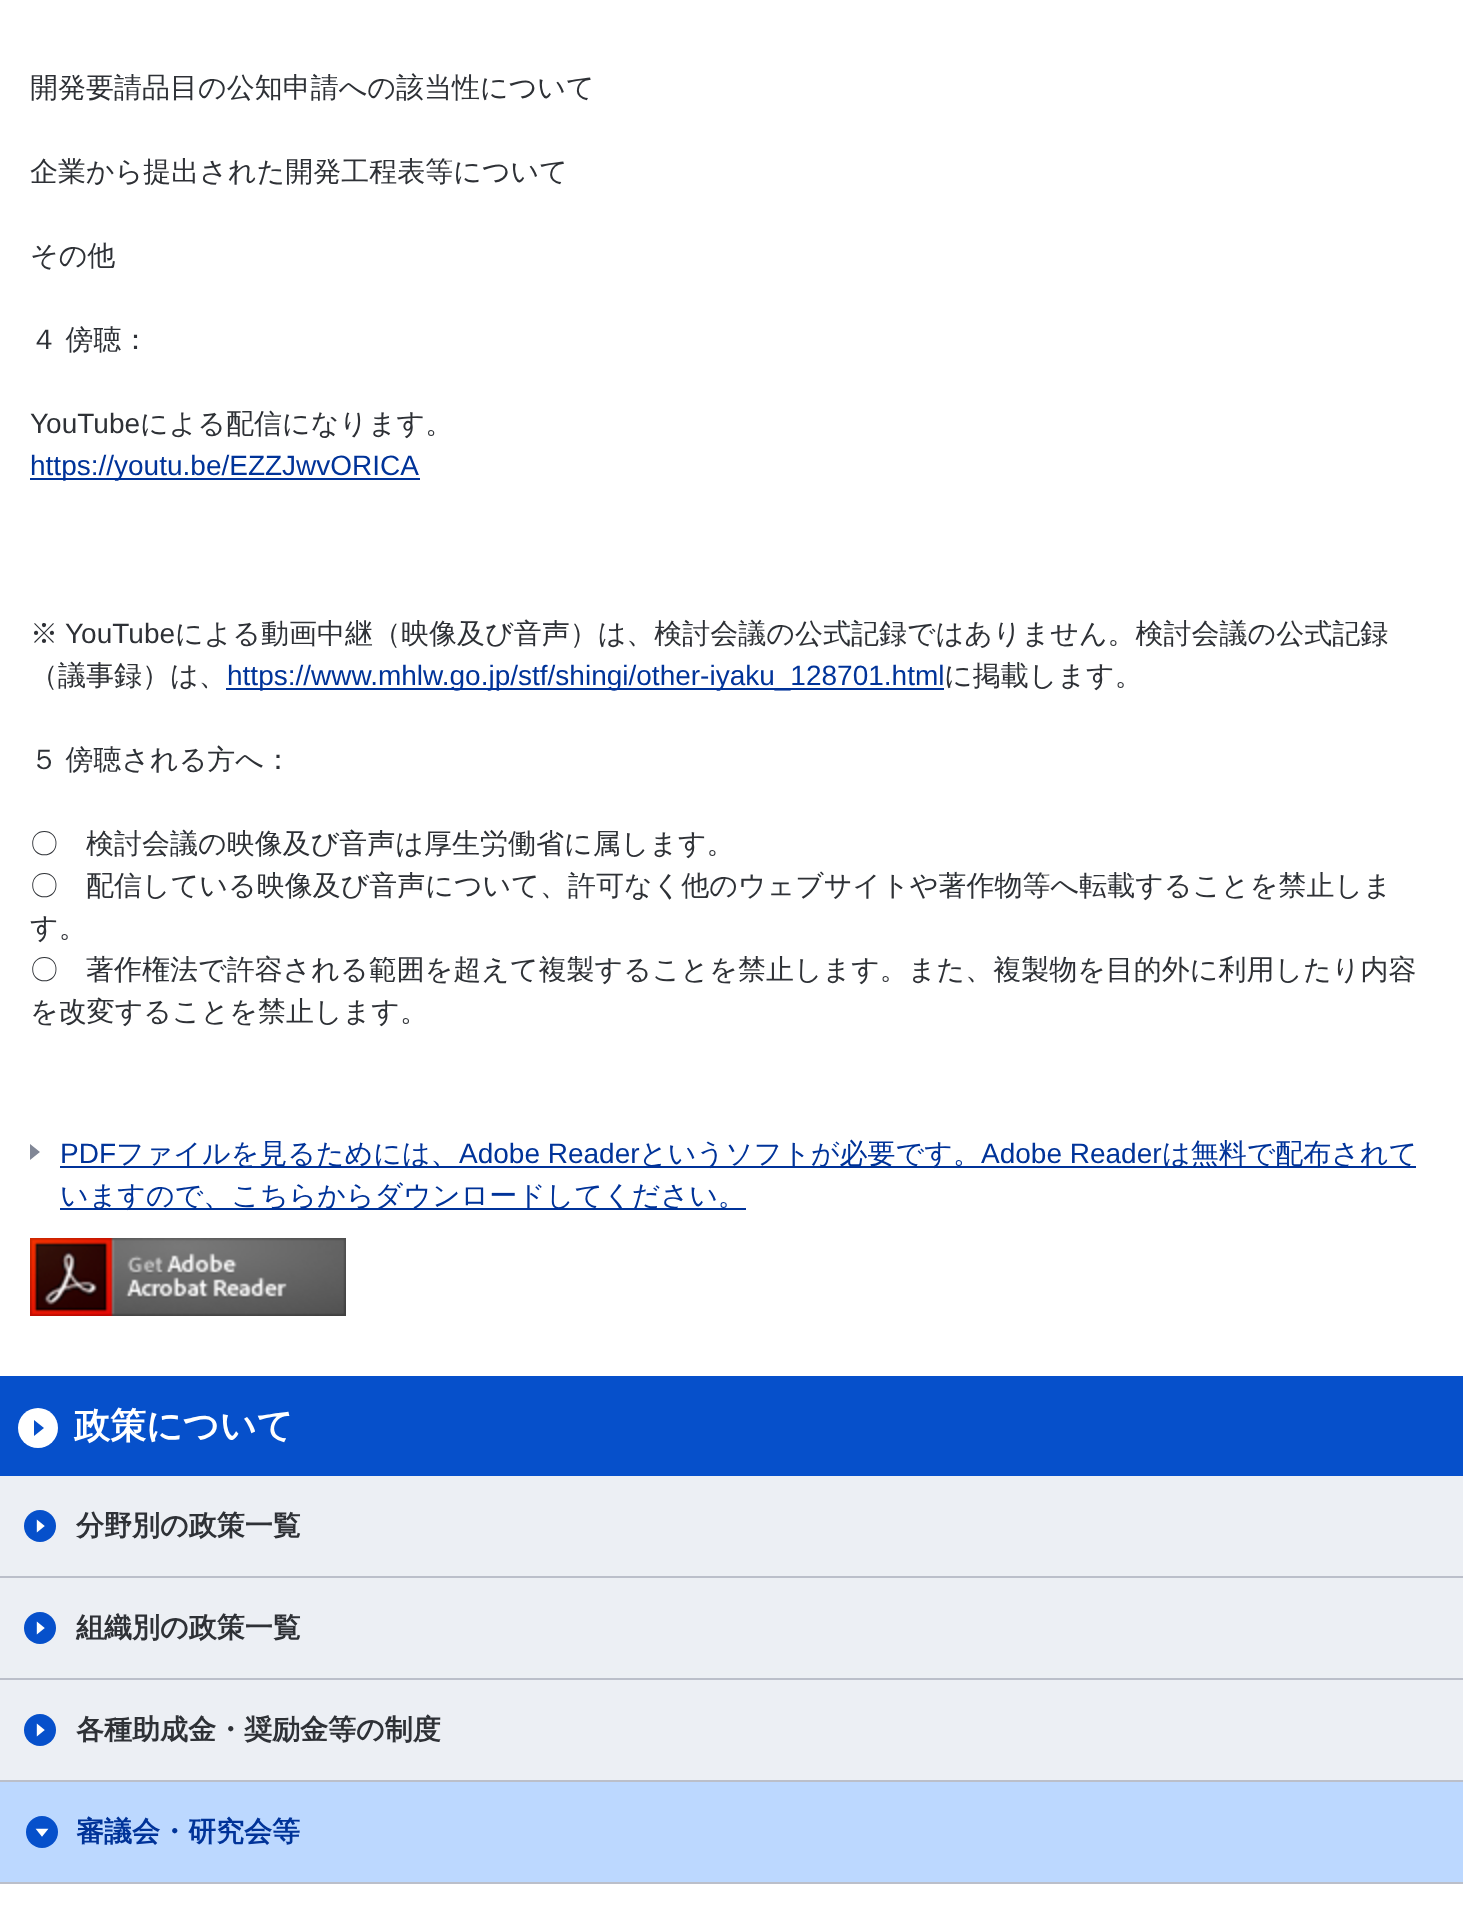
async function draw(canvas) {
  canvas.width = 1463
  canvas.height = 1916
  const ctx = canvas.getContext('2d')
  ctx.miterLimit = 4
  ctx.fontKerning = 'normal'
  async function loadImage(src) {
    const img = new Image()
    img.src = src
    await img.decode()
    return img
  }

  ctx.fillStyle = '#fff'
  ctx.fillRect(0, 0, 1463, 1916)
  ctx.font = '500 28px WenQuanYi Zen Hei'
  ctx.fillStyle = '#2e3136'
  ctx.fillText('開発要請品目の公知申請への該当性について', 30, 97)
  ctx.fillText('企業から提出された開発工程表等について', 30, 181)
  ctx.fillText('その他', 30, 265)
  ctx.wordSpacing = '-1px'
  ctx.fillText('４ 傍聴：', 30, 349)
  ctx.wordSpacing = '0px'
  ctx.font = '28px Liberation Sans'
  ctx.fillText('YouTube', 30, 433)
  ctx.font = '500 28px WenQuanYi Zen Hei'
  ctx.fillText('による配信になります。', 140, 433)
  ctx.fillStyle = '#039'
  ctx.fillRect(30, 478, 390, 2)
  ctx.font = '28px Liberation Sans'
  ctx.fillText('https://youtu.be/EZZJwvORICA', 30, 475)
  ctx.font = '500 28px WenQuanYi Zen Hei'
  ctx.fillStyle = '#2e3136'
  ctx.fillText('※', 30, 643)
  ctx.font = '28px Liberation Sans'
  ctx.fillText('YouTube', 65, 643)
  ctx.font = '500 28px WenQuanYi Zen Hei'
  ctx.fillText('による動画中継（映像及び音声）は、検討会議の公式記録ではありません。検討会議の公式記録', 175, 643)
  ctx.fillText('（議事録）は、', 30, 685)
  ctx.fillStyle = '#039'
  ctx.fillRect(226, 688, 718, 2)
  ctx.font = '28px Liberation Sans'
  ctx.fillText('https://www.mhlw.go.jp/stf/shingi/other-iyaku_128701.html', 227, 685)
  ctx.font = '500 28px WenQuanYi Zen Hei'
  ctx.fillStyle = '#2e3136'
  ctx.fillText('に掲載します。', 944, 685)
  ctx.wordSpacing = '-1px'
  ctx.fillText('５ 傍聴される方へ：', 30, 769)
  ctx.wordSpacing = '0px'
  ctx.fillText('〇　検討会議の映像及び音声は厚生労働省に属します。', 30, 853)
  ctx.fillText('〇　配信している映像及び音声について、許可なく他のウェブサイトや著作物等へ転載することを禁止しま', 30, 895)
  ctx.fillText('す。', 30, 937)
  ctx.fillText('〇　著作権法で許容される範囲を超えて複製することを禁止します。また、複製物を目的外に利用したり内容', 30, 979)
  ctx.fillText('を改変することを禁止します。', 30, 1021)
  ctx.drawImage(await loadImage('image0.png'), 30, 1144, 10, 16)
  ctx.font = '28px Liberation Sans'
  ctx.fillStyle = '#039'
  ctx.fillText('PDF', 60, 1163)
  ctx.fillRect(60, 1166, 1356, 2)
  ctx.font = '500 28px WenQuanYi Zen Hei'
  ctx.fillText('ファイルを見るためには、', 116, 1163)
  ctx.font = '28px Liberation Sans'
  ctx.fillText('Adobe Reader', 459, 1163)
  ctx.font = '500 28px WenQuanYi Zen Hei'
  ctx.fillText('というソフトが必要です。', 639, 1163)
  ctx.font = '28px Liberation Sans'
  ctx.fillText('Adobe Reader', 981, 1163)
  ctx.font = '500 28px WenQuanYi Zen Hei'
  ctx.fillText('は無料で配布されて', 1162, 1163)
  ctx.fillRect(60, 1208, 686, 2)
  ctx.fillText('いますので、こちらからダウンロードしてください。', 60, 1205)
  ctx.drawImage(await loadImage('image1.png'), 30, 1238, 316, 78)
  ctx.fillStyle = '#0650cb'
  ctx.fillRect(0, 1376, 1463, 100)
  ctx.drawImage(await loadImage('image2.png'), 18, 1408, 40, 40)
  ctx.font = 'bold 36px WenQuanYi Zen Hei'
  ctx.fillStyle = '#fff'
  ctx.fillText('政策について', 74, 1438)
  ctx.fillStyle = '#eceff4'
  ctx.fillRect(0, 1476, 1463, 100)
  ctx.drawImage(await loadImage('image3.png'), 24, 1510, 32, 32)
  ctx.font = 'bold 28px WenQuanYi Zen Hei'
  ctx.fillStyle = '#2e3136'
  ctx.fillText('分野別の政策一覧', 76, 1535)
  ctx.fillStyle = '#eceff4'
  ctx.fillRect(0, 1578, 1463, 100)
  ctx.fillStyle = '#bbbfca'
  ctx.fillRect(0, 1576, 1463, 2)
  ctx.drawImage(await loadImage('image3.png'), 24, 1612, 32, 32)
  ctx.fillStyle = '#2e3136'
  ctx.fillText('組織別の政策一覧', 76, 1637)
  ctx.fillStyle = '#eceff4'
  ctx.fillRect(0, 1680, 1463, 100)
  ctx.fillStyle = '#bbbfca'
  ctx.fillRect(0, 1678, 1463, 2)
  ctx.drawImage(await loadImage('image3.png'), 24, 1714, 32, 32)
  ctx.fillStyle = '#2e3136'
  ctx.fillText('各種助成金・奨励金等の制度', 76, 1739)
  ctx.fillStyle = '#bbbfca'
  ctx.fillRect(0, 1780, 1463, 2)
  ctx.fillStyle = '#bcd8ff'
  ctx.fillRect(0, 1782, 1463, 100)
  ctx.drawImage(await loadImage('image4.png'), 26, 1816, 32, 32)
  ctx.fillStyle = '#039'
  ctx.fillText('審議会・研究会等', 76, 1841)
  ctx.fillStyle = '#bbbfca'
  ctx.fillRect(0, 1882, 1463, 2)
}

draw(document.querySelector('canvas'))
